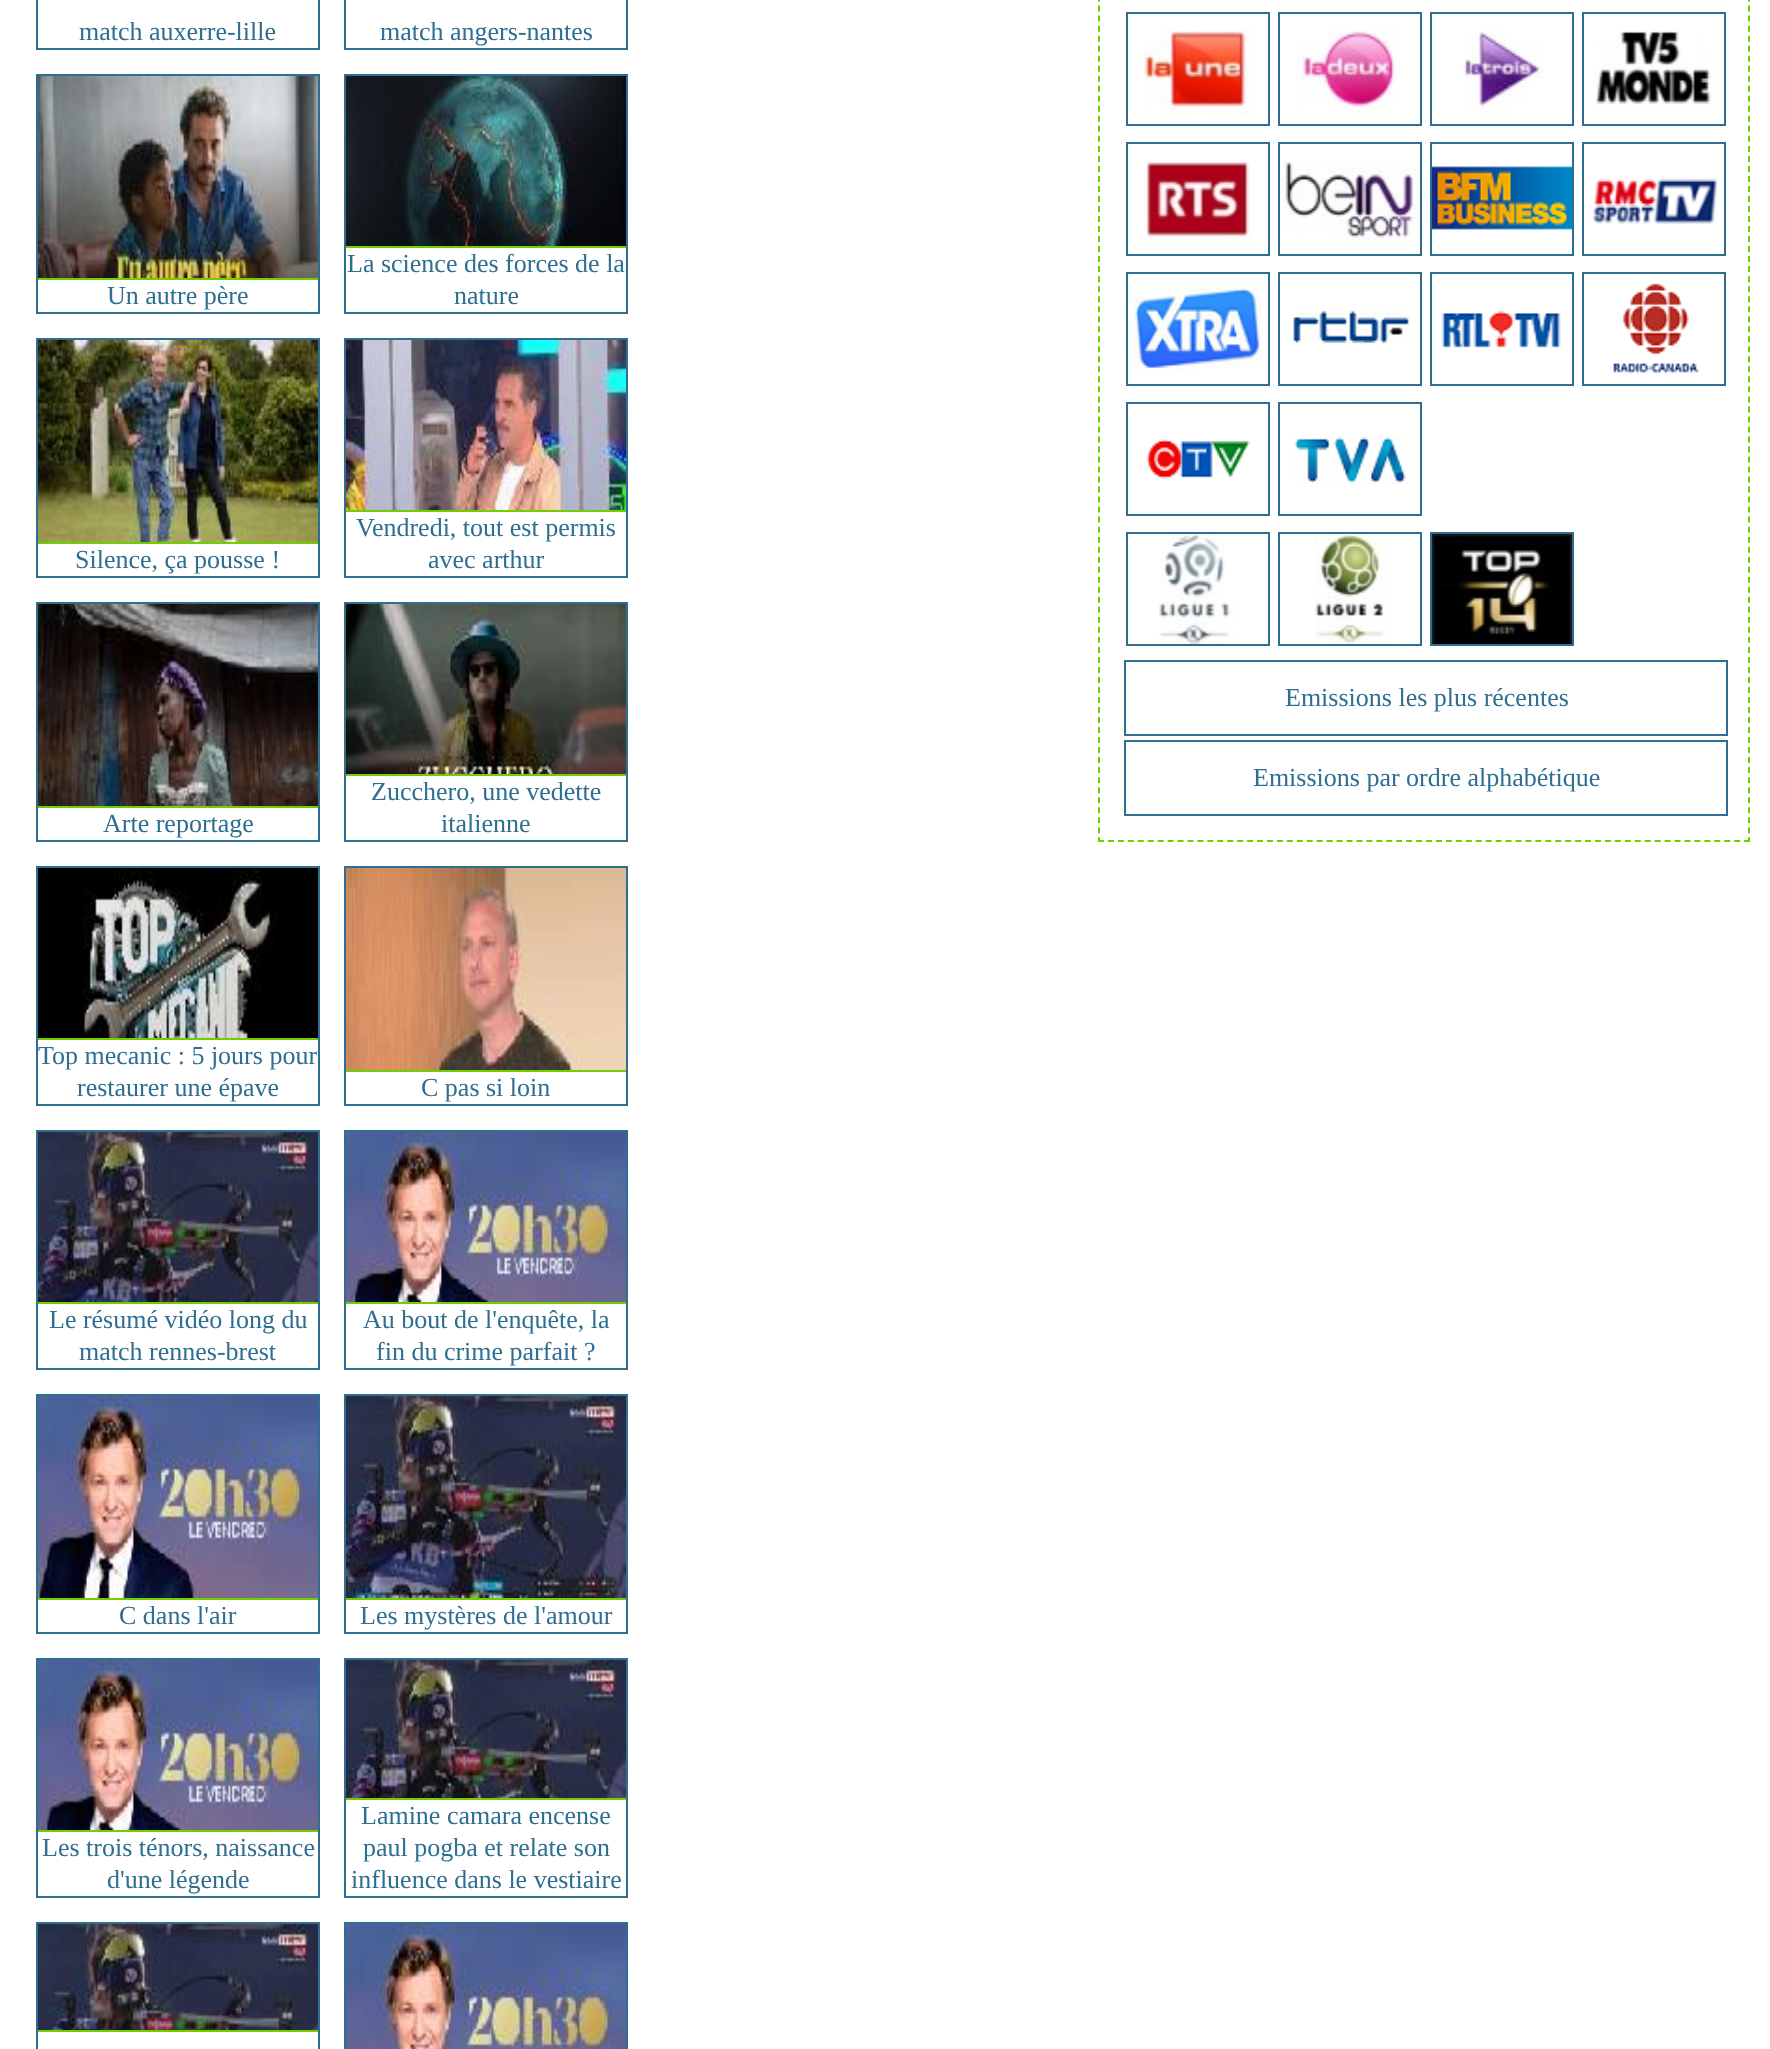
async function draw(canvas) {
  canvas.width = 1770
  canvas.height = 2049
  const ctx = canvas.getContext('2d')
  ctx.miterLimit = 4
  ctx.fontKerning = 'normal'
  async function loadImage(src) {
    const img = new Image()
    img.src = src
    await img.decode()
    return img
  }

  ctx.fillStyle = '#fff'
  ctx.fillRect(0, 0, 1770, 2049)
  ctx.strokeStyle = '#2f6e91'
  ctx.lineWidth = 2
  ctx.strokeRect(37, -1, 282, 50)
  ctx.font = '26px Liberation Serif'
  ctx.fillStyle = '#2f6e91'
  ctx.fillText('match auxerre-lille', 79, 40)
  ctx.strokeRect(345, -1, 282, 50)
  ctx.fillText('match angers-nantes', 380, 40)
  ctx.strokeRect(37, 75, 282, 238)
  ctx.drawImage(await loadImage('image0.png'), 38, 76, 280, 202)
  ctx.fillStyle = '#70cf01'
  ctx.fillRect(38, 278, 280, 2)
  ctx.fillStyle = '#2f6e91'
  ctx.fillText('Un autre père', 107, 304)
  ctx.strokeRect(345, 75, 282, 238)
  ctx.drawImage(await loadImage('image1.png'), 346, 76, 280, 170)
  ctx.fillStyle = '#70cf01'
  ctx.fillRect(346, 246, 280, 2)
  ctx.fillStyle = '#2f6e91'
  ctx.fillText('La science des forces de la', 347, 272)
  ctx.fillText('nature', 454, 304)
  ctx.strokeRect(37, 339, 282, 238)
  ctx.drawImage(await loadImage('image2.png'), 38, 340, 280, 202)
  ctx.fillStyle = '#70cf01'
  ctx.fillRect(38, 542, 280, 2)
  ctx.fillStyle = '#2f6e91'
  ctx.fillText('Silence, ça pousse !', 75, 568)
  ctx.strokeRect(345, 339, 282, 238)
  ctx.drawImage(await loadImage('image3.png'), 346, 340, 280, 170)
  ctx.fillStyle = '#70cf01'
  ctx.fillRect(346, 510, 280, 2)
  ctx.fillStyle = '#2f6e91'
  ctx.fillText('Vendredi, tout est permis', 356, 536)
  ctx.fillText('avec arthur', 428, 568)
  ctx.strokeRect(37, 603, 282, 238)
  ctx.drawImage(await loadImage('image4.png'), 38, 604, 280, 202)
  ctx.fillStyle = '#70cf01'
  ctx.fillRect(38, 806, 280, 2)
  ctx.fillStyle = '#2f6e91'
  ctx.fillText('Arte reportage', 103, 832)
  ctx.strokeRect(345, 603, 282, 238)
  ctx.drawImage(await loadImage('image5.png'), 346, 604, 280, 170)
  ctx.fillStyle = '#70cf01'
  ctx.fillRect(346, 774, 280, 2)
  ctx.fillStyle = '#2f6e91'
  ctx.fillText('Zucchero, une vedette', 371, 800)
  ctx.fillText('italienne', 441, 832)
  ctx.strokeRect(37, 867, 282, 238)
  ctx.drawImage(await loadImage('image6.png'), 38, 868, 280, 170)
  ctx.fillStyle = '#70cf01'
  ctx.fillRect(38, 1038, 280, 2)
  ctx.fillStyle = '#2f6e91'
  ctx.fillText('Top mecanic : 5 jours pour', 38, 1064)
  ctx.fillText('restaurer une épave', 77, 1096)
  ctx.strokeRect(345, 867, 282, 238)
  ctx.drawImage(await loadImage('image7.png'), 346, 868, 280, 202)
  ctx.fillStyle = '#70cf01'
  ctx.fillRect(346, 1070, 280, 2)
  ctx.fillStyle = '#2f6e91'
  ctx.fillText('C pas si loin', 421, 1096)
  ctx.strokeRect(37, 1131, 282, 238)
  ctx.drawImage(await loadImage('image8.png'), 38, 1132, 280, 170)
  ctx.fillStyle = '#70cf01'
  ctx.fillRect(38, 1302, 280, 2)
  ctx.fillStyle = '#2f6e91'
  ctx.fillText('Le résumé vidéo long du', 49, 1328)
  ctx.fillText('match rennes-brest', 79, 1360)
  ctx.strokeRect(345, 1131, 282, 238)
  ctx.drawImage(await loadImage('image9.png'), 346, 1132, 280, 170)
  ctx.fillStyle = '#70cf01'
  ctx.fillRect(346, 1302, 280, 2)
  ctx.fillStyle = '#2f6e91'
  ctx.fillText('Au bout de l\'enquête, la', 363, 1328)
  ctx.fillText('fin du crime parfait ?', 376, 1360)
  ctx.strokeRect(37, 1395, 282, 238)
  ctx.drawImage(await loadImage('image10.png'), 38, 1396, 280, 202)
  ctx.fillStyle = '#70cf01'
  ctx.fillRect(38, 1598, 280, 2)
  ctx.fillStyle = '#2f6e91'
  ctx.fillText('C dans l\'air', 119, 1624)
  ctx.strokeRect(345, 1395, 282, 238)
  ctx.drawImage(await loadImage('image11.png'), 346, 1396, 280, 202)
  ctx.fillStyle = '#70cf01'
  ctx.fillRect(346, 1598, 280, 2)
  ctx.fillStyle = '#2f6e91'
  ctx.fillText('Les mystères de l\'amour', 360, 1624)
  ctx.strokeRect(37, 1659, 282, 238)
  ctx.drawImage(await loadImage('image12.png'), 38, 1660, 280, 170)
  ctx.fillStyle = '#70cf01'
  ctx.fillRect(38, 1830, 280, 2)
  ctx.fillStyle = '#2f6e91'
  ctx.fillText('Les trois ténors, naissance', 42, 1856)
  ctx.fillText('d\'une légende', 107, 1888)
  ctx.strokeRect(345, 1659, 282, 238)
  ctx.drawImage(await loadImage('image13.png'), 346, 1660, 280, 138)
  ctx.fillStyle = '#70cf01'
  ctx.fillRect(346, 1798, 280, 2)
  ctx.fillStyle = '#2f6e91'
  ctx.fillText('Lamine camara encense', 361, 1824)
  ctx.fillText('paul pogba et relate son', 363, 1856)
  ctx.fillText('influence dans le vestiaire', 351, 1888)
  ctx.strokeRect(37, 1923, 282, 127)
  ctx.drawImage(await loadImage('image14.png'), 38, 1924, 280, 106)
  ctx.fillStyle = '#70cf01'
  ctx.fillRect(38, 2030, 280, 2)
  ctx.strokeRect(345, 1923, 282, 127)
  ctx.drawImage(await loadImage('image15.png'), 346, 1924, 280, 125)
  ctx.beginPath()
  ctx.moveTo(1749, -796)
  ctx.lineTo(1749, 842)
  ctx.strokeStyle = '#70cf01'
  ctx.setLineDash([6, 4.02])
  ctx.stroke()
  ctx.beginPath()
  ctx.moveTo(1098, 841)
  ctx.lineTo(1750, 841)
  ctx.setLineDash([6, 3.94])
  ctx.stroke()
  ctx.beginPath()
  ctx.moveTo(1099, -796)
  ctx.lineTo(1099, 842)
  ctx.setLineDash([6, 4.02])
  ctx.stroke()
  ctx.strokeStyle = '#2f6e91'
  ctx.setLineDash([])
  ctx.strokeRect(1127, 13, 142, 112)
  ctx.drawImage(await loadImage('image16.png'), 1143, 30, 113, 84)
  ctx.strokeRect(1279, 13, 142, 112)
  ctx.drawImage(await loadImage('image17.png'), 1296, 30, 104, 83)
  ctx.strokeRect(1431, 13, 142, 112)
  ctx.drawImage(await loadImage('image18.png'), 1463, 31, 81, 83)
  ctx.strokeRect(1583, 13, 142, 112)
  ctx.drawImage(await loadImage('image19.png'), 1595, 30, 116, 81)
  ctx.strokeRect(1127, 143, 142, 112)
  ctx.drawImage(await loadImage('image20.png'), 1144, 160, 108, 85)
  ctx.strokeRect(1279, 143, 142, 112)
  ctx.drawImage(await loadImage('image21.png'), 1280, 161, 140, 80)
  ctx.strokeRect(1431, 143, 142, 112)
  ctx.drawImage(await loadImage('image22.png'), 1432, 166, 140, 64)
  ctx.strokeRect(1583, 143, 142, 112)
  ctx.drawImage(await loadImage('image23.png'), 1592, 178, 127, 46)
  ctx.strokeRect(1127, 273, 142, 112)
  ctx.drawImage(await loadImage('image24.png'), 1132, 286, 130, 84)
  ctx.strokeRect(1279, 273, 142, 112)
  ctx.drawImage(await loadImage('image25.png'), 1293, 310, 117, 34)
  ctx.strokeRect(1431, 273, 142, 112)
  ctx.drawImage(await loadImage('image26.png'), 1441, 310, 120, 38)
  ctx.strokeRect(1583, 273, 142, 112)
  ctx.drawImage(await loadImage('image27.png'), 1613, 283, 86, 92)
  ctx.strokeRect(1127, 403, 142, 112)
  ctx.drawImage(await loadImage('image28.png'), 1146, 439, 104, 41)
  ctx.strokeRect(1279, 403, 142, 112)
  ctx.drawImage(await loadImage('image29.png'), 1294, 436, 112, 48)
  ctx.strokeRect(1127, 533, 142, 112)
  ctx.drawImage(await loadImage('image30.png'), 1159, 534, 75, 110)
  ctx.strokeRect(1279, 533, 142, 112)
  ctx.drawImage(await loadImage('image31.png'), 1314, 534, 78, 110)
  ctx.strokeRect(1431, 533, 142, 112)
  ctx.drawImage(await loadImage('image32.png'), 1432, 534, 140, 110)
  ctx.strokeRect(1125, 661, 602, 74)
  ctx.fillStyle = '#2f6e91'
  ctx.fillText('Emissions les plus récentes', 1285, 706)
  ctx.strokeRect(1125, 741, 602, 74)
  ctx.fillText('Emissions par ordre alphabétique', 1253, 786)
}

draw(document.querySelector('canvas'))
